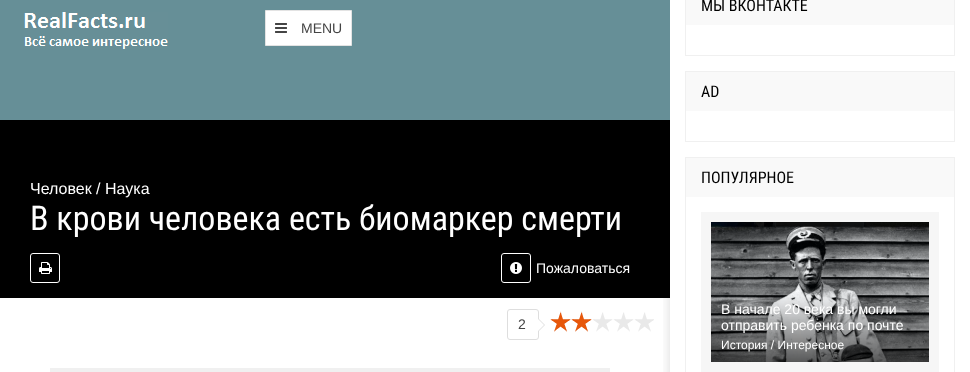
async function draw(canvas) {
  canvas.width = 970
  canvas.height = 372
  const ctx = canvas.getContext('2d')
  ctx.miterLimit = 4
  ctx.fontKerning = 'normal'
  async function loadImage(src) {
    const img = new Image()
    img.src = src
    await img.decode()
    return img
  }

  ctx.fillStyle = '#fff'
  ctx.fillRect(0, 0, 970, 372)
  ctx.save()
  ctx.beginPath()
  ctx.rect(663, 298, 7, 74)
  ctx.clip()
  ctx.fillStyle = '#00000080'
  ctx.filter = 'blur(10px)'
  ctx.beginPath()
  ctx.rect(680, 20, 260, 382)
  ctx.fill()
  ctx.filter = 'none'
  ctx.restore()
  ctx.fillStyle = '#668f97'
  ctx.fillRect(0, 0, 670, 120)
  ctx.drawImage(await loadImage('image0.png'), 24, 12, 144, 37)
  ctx.fillStyle = '#fff'
  ctx.beginPath()
  ctx.rect(265.5, 10.5, 86, 35)
  ctx.fill()
  ctx.strokeStyle = '#e3e3e3'
  ctx.stroke()
  ctx.drawImage(await loadImage('image1.png'), 275, 23, 12, 10)
  ctx.font = '14px Liberation Sans'
  ctx.fillStyle = '#444'
  ctx.fillText('MENU', 301, 33)
  ctx.strokeStyle = '#f0f0f0'
  ctx.strokeRect(685.5, -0.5, 269, 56)
  ctx.fillStyle = '#f9f9f9'
  ctx.fillRect(686, 0, 268, 25)
  ctx.font = '16px Roboto Condensed'
  ctx.fillStyle = '#000'
  ctx.fillText('МЫ ВКОНТАКТЕ', 701, 11)
  ctx.strokeRect(685.5, 71.5, 269, 70)
  ctx.fillStyle = '#f9f9f9'
  ctx.fillRect(686, 72, 268, 39)
  ctx.fillStyle = '#000'
  ctx.fillText('AD', 701, 97)
  ctx.strokeRect(685.5, 157.5, 269, 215)
  ctx.fillStyle = '#f9f9f9'
  ctx.fillRect(686, 158, 268, 39)
  ctx.fillStyle = '#000'
  ctx.fillText('ПОПУЛЯРНОЕ', 701, 183)
  ctx.fillStyle = '#f6f6f6'
  ctx.fillRect(701, 212, 238, 160)
  ctx.drawImage(await loadImage('image2.png'), 711, 222, 218, 140)
  ctx.font = '14px Liberation Sans'
  ctx.fillStyle = '#fff'
  ctx.fillText('В начале 20 века вы могли', 721, 314)
  ctx.fillText('отправить ребенка по почте', 721, 330)
  ctx.font = '12px Liberation Sans'
  ctx.fillText('История / Интересное', 721, 349)
  ctx.fillStyle = '#000'
  ctx.fillRect(0, 120, 670, 178)
  ctx.font = '16px Liberation Sans'
  ctx.fillStyle = '#fff'
  ctx.fillText('Человек / Наука', 30, 194)
  ctx.font = '34px Roboto Condensed'
  ctx.fillText('В крови человека есть биомаркер смерти', 30, 230)
  ctx.beginPath()
  ctx.roundRect(30.5, 253.5, 29, 29, 2.5)
  ctx.strokeStyle = '#fff'
  ctx.stroke()
  ctx.drawImage(await loadImage('image3.png'), 39, 262, 13, 12)
  ctx.beginPath()
  ctx.roundRect(501.5, 253.5, 29, 29, 2.5)
  ctx.stroke()
  ctx.drawImage(await loadImage('image4.png'), 510, 262, 12, 12)
  ctx.font = '14px Liberation Sans'
  ctx.fillText('Пожаловаться', 536, 273)
  ctx.beginPath()
  ctx.roundRect(507.5, 309.5, 31, 30, 2.5)
  ctx.strokeStyle = '#dedede'
  ctx.stroke()
  ctx.fillStyle = '#444'
  ctx.fillText('2', 518, 329)
  ctx.fillStyle = '#dedede'
  ctx.beginPath()
  ctx.moveTo(538, 332)
  ctx.lineTo(538, 318)
  ctx.lineTo(545, 325)
  ctx.closePath()
  ctx.fill()
  ctx.fillStyle = '#fff'
  ctx.beginPath()
  ctx.moveTo(538, 331)
  ctx.lineTo(538, 319)
  ctx.lineTo(544, 325)
  ctx.closePath()
  ctx.fill()
  ctx.drawImage(await loadImage('image5.png'), 551, 312, 103, 20)
  ctx.drawImage(await loadImage('image6.png'), 550, 311, 42, 21)
  ctx.strokeStyle = '#f0f0f0'
  ctx.lineWidth = 5
  ctx.strokeRect(52.5, 370.5, 555, 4)
}

draw(document.querySelector('canvas'))
